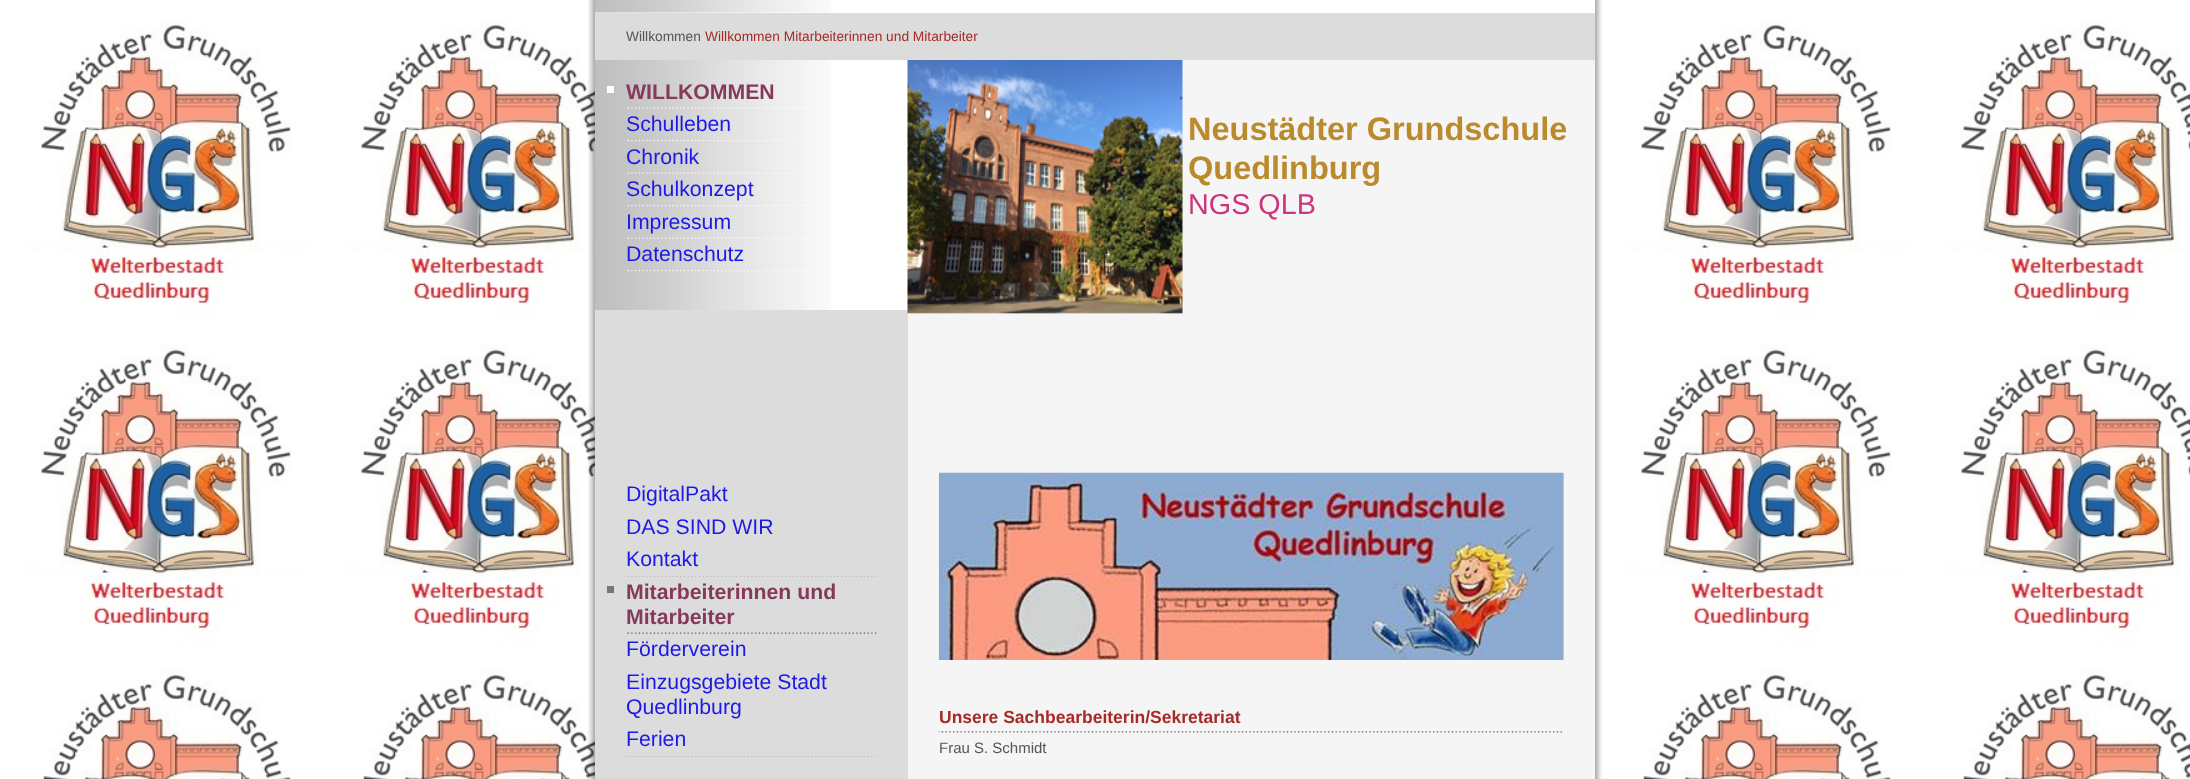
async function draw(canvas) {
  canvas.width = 2190
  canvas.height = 779
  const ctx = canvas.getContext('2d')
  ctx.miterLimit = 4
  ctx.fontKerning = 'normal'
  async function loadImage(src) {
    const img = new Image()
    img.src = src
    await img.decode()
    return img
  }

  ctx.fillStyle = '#fff'
  ctx.fillRect(0, 0, 2190, 779)
  ctx.drawImage(await loadImage('image0.png'), 0, 0, 2190, 779)
  ctx.drawImage(await loadImage('image1.png'), 588, 0, 1014, 779)
  ctx.fillStyle = '#f5f5f5'
  ctx.fillRect(908, 60, 687, 719)
  ctx.fillStyle = '#fff'
  ctx.fillRect(595, 0, 1000, 13)
  ctx.drawImage(await loadImage('image2.png'), 595, 0, 236, 13)
  ctx.fillStyle = '#dcdcdc'
  ctx.fillRect(595, 13, 1000, 47)
  ctx.font = '13.75px Liberation Sans'
  ctx.fillStyle = '#555'
  ctx.fillText('Willkommen', 626, 41)
  ctx.fillStyle = '#a52b28'
  ctx.fillText('Willkommen Mitarbeiterinnen und Mitarbeiter', 705, 41)
  ctx.fillStyle = '#fff'
  ctx.fillRect(595, 60, 313, 250)
  ctx.drawImage(await loadImage('image3.png'), 595, 60, 236, 250)
  ctx.drawImage(await loadImage('image4.png'), 627, 107, 193, 2)
  ctx.fillRect(607, 86, 7, 7)
  ctx.font = 'bold 21.25px Liberation Sans'
  ctx.fillStyle = '#86395a'
  ctx.fillText('WILLKOMMEN', 626, 99)
  ctx.drawImage(await loadImage('image5.png'), 627, 140, 204, 2)
  ctx.font = '21.25px Liberation Sans'
  ctx.fillStyle = '#1d19e6'
  ctx.fillText('Schulleben', 626, 131)
  ctx.drawImage(await loadImage('image4.png'), 627, 172, 193, 2)
  ctx.fillText('Chronik', 626, 164)
  ctx.drawImage(await loadImage('image5.png'), 627, 205, 204, 2)
  ctx.fillText('Schulkonzept', 626, 196)
  ctx.drawImage(await loadImage('image4.png'), 627, 237, 193, 2)
  ctx.fillText('Impressum', 626, 229)
  ctx.drawImage(await loadImage('image5.png'), 627, 270, 204, 2)
  ctx.fillText('Datenschutz', 626, 261)
  ctx.fillStyle = '#dcdcdc'
  ctx.fillRect(595, 310, 313, 469)
  ctx.drawImage(await loadImage('image6.png'), 907, 60, 276, 254)
  ctx.font = 'bold 32.5px Liberation Sans'
  ctx.fillStyle = '#ba8a2d'
  ctx.fillText('Neustädter Grundschule', 1188, 140)
  ctx.fillText('Quedlinburg', 1188, 179)
  ctx.font = '28.75px Liberation Sans'
  ctx.fillStyle = '#c9367d'
  ctx.fillText('NGS QLB', 1188, 214)
  ctx.font = '21.25px Liberation Sans'
  ctx.fillStyle = '#1d19e6'
  ctx.fillText('DigitalPakt', 626, 501)
  ctx.fillText('DAS SIND WIR', 626, 534)
  ctx.drawImage(await loadImage('image7.png'), 627, 576, 250, 1)
  ctx.fillText('Kontakt', 626, 566)
  ctx.drawImage(await loadImage('image8.png'), 627, 632, 250, 2)
  ctx.fillStyle = '#777'
  ctx.fillRect(607, 586, 7, 7)
  ctx.font = 'bold 21.25px Liberation Sans'
  ctx.fillStyle = '#86395a'
  ctx.fillText('Mitarbeiterinnen und', 626, 599)
  ctx.fillText('Mitarbeiter', 626, 624)
  ctx.font = '21.25px Liberation Sans'
  ctx.fillStyle = '#1d19e6'
  ctx.fillText('Förderverein', 626, 656)
  ctx.fillText('Einzugsgebiete Stadt', 626, 689)
  ctx.fillText('Quedlinburg', 626, 714)
  ctx.drawImage(await loadImage('image7.png'), 627, 756, 250, 1)
  ctx.fillText('Ferien', 626, 746)
  ctx.drawImage(await loadImage('image9.png'), 938, 472, 626, 188)
  ctx.drawImage(await loadImage('image10.png'), 938, 731, 624, 2)
  ctx.font = 'bold 17.5px Liberation Sans'
  ctx.fillStyle = '#a52b28'
  ctx.fillText('Unsere Sachbearbeiterin/Sekretariat', 939, 723)
  ctx.font = '15px Liberation Sans'
  ctx.fillStyle = '#555'
  ctx.fillText('Frau S. Schmidt', 939, 753)
}

draw(document.querySelector('canvas'))
